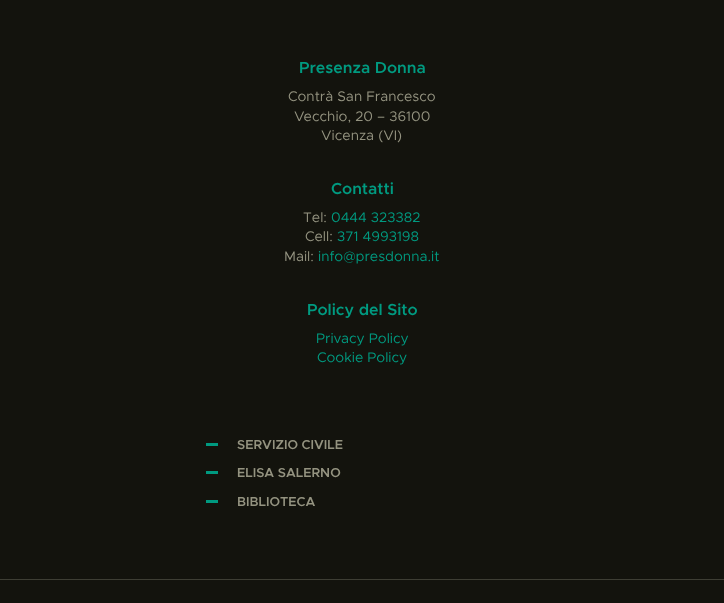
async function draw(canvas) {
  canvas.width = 724
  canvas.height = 603
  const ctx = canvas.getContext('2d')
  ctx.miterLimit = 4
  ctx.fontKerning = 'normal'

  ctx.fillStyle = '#13130d'
  ctx.fillRect(0, 0, 724, 603)
  ctx.font = '600 16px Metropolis'
  ctx.fillStyle = '#009a80'
  ctx.fillText('Presenza Donna', 299, 73)
  ctx.font = '14px Metropolis'
  ctx.fillStyle = '#949380'
  ctx.fillText('Contrà San Francesco', 288, 101)
  ctx.fillText('Vecchio, 20 – 36100', 294, 121)
  ctx.fillText('Vicenza (VI)', 321, 140)
  ctx.font = '600 16px Metropolis'
  ctx.fillStyle = '#009a80'
  ctx.fillText('Contatti', 331, 194)
  ctx.font = '14px Metropolis'
  ctx.fillStyle = '#949380'
  ctx.fillText('Tel:', 303, 222)
  ctx.fillStyle = '#009a80'
  ctx.fillText('0444 323382', 331, 222)
  ctx.fillStyle = '#949380'
  ctx.fillText('Cell:', 305, 241)
  ctx.fillStyle = '#009a80'
  ctx.fillText('371 4993198', 337, 241)
  ctx.fillStyle = '#949380'
  ctx.fillText('Mail:', 284, 261)
  ctx.fillStyle = '#009a80'
  ctx.fillText('info@presdonna.it', 318, 261)
  ctx.font = '600 16px Metropolis'
  ctx.fillText('Policy del Sito', 307, 315)
  ctx.font = '14px Metropolis'
  ctx.fillText('Privacy Policy', 316, 343)
  ctx.fillText('Cookie Policy', 317, 362)
  ctx.fillRect(206, 443, 12, 3)
  ctx.font = '600 13px Metropolis'
  ctx.fillStyle = '#949380'
  ctx.fillText('SERVIZIO CIVILE', 237, 449)
  ctx.fillStyle = '#009a80'
  ctx.fillRect(206, 471, 12, 3)
  ctx.fillStyle = '#949380'
  ctx.fillText('ELISA SALERNO', 237, 477)
  ctx.fillStyle = '#009a80'
  ctx.fillRect(206, 500, 12, 3)
  ctx.fillStyle = '#949380'
  ctx.fillText('BIBLIOTECA', 237, 506)
  ctx.fillStyle = '#3e3e34'
  ctx.fillRect(0, 579, 724, 1)
}

draw(document.querySelector('canvas'))
